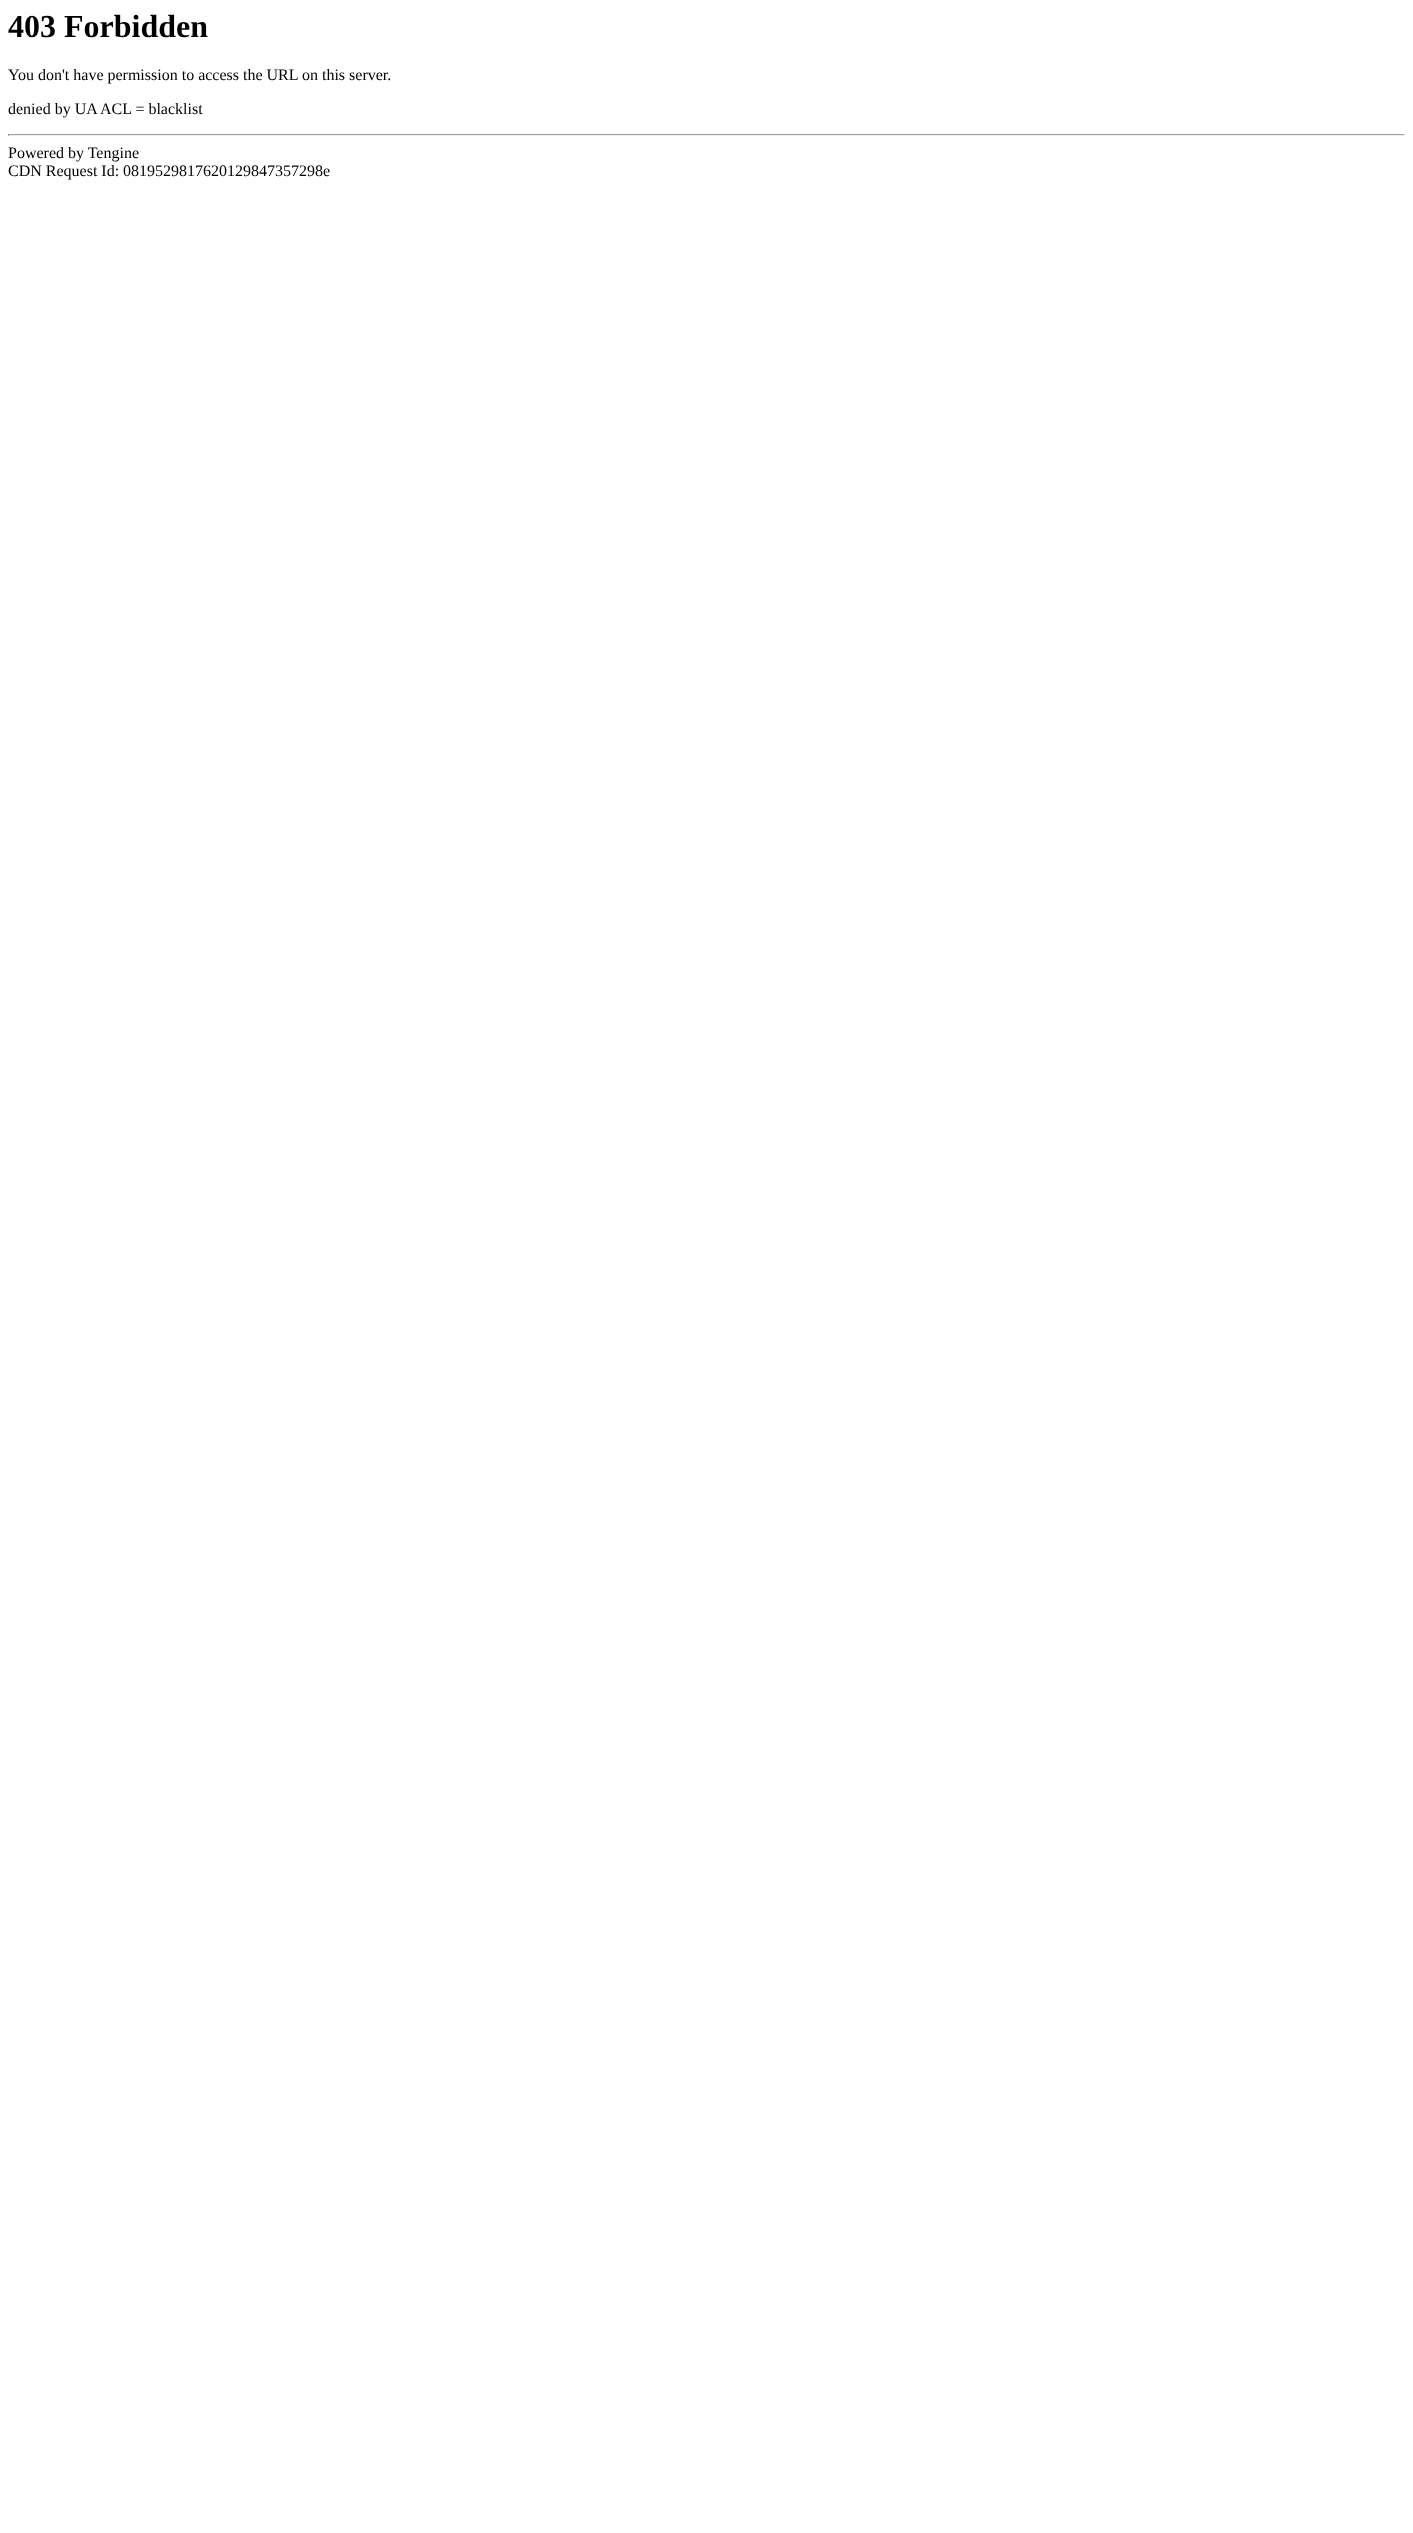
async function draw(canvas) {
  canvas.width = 1413
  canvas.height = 2533
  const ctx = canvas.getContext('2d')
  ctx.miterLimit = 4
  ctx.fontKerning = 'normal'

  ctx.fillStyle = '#fff'
  ctx.fillRect(0, 0, 1413, 2533)
  ctx.font = 'bold 32px Liberation Serif'
  ctx.fillStyle = '#000'
  ctx.fillText('403 Forbidden', 8, 37)
  ctx.font = '16px Liberation Serif'
  ctx.fillText('You don\'t have permission to access the URL on this server.', 8, 80)
  ctx.fillText('denied by UA ACL = blacklist', 8, 114)
  ctx.fillStyle = '#9f9f9f'
  ctx.fillRect(8, 134, 1397, 1)
  ctx.fillStyle = '#eee'
  ctx.fillRect(1404, 134, 1, 2)
  ctx.fillRect(8, 135, 1397, 1)
  ctx.fillStyle = '#9f9f9f'
  ctx.fillRect(8, 134, 1, 2)
  ctx.fillStyle = '#000'
  ctx.fillText('Powered by Tengine', 8, 158)
  ctx.fillText('CDN Request Id: 0819529817620129847357298e', 8, 176)
}

draw(document.querySelector('canvas'))
